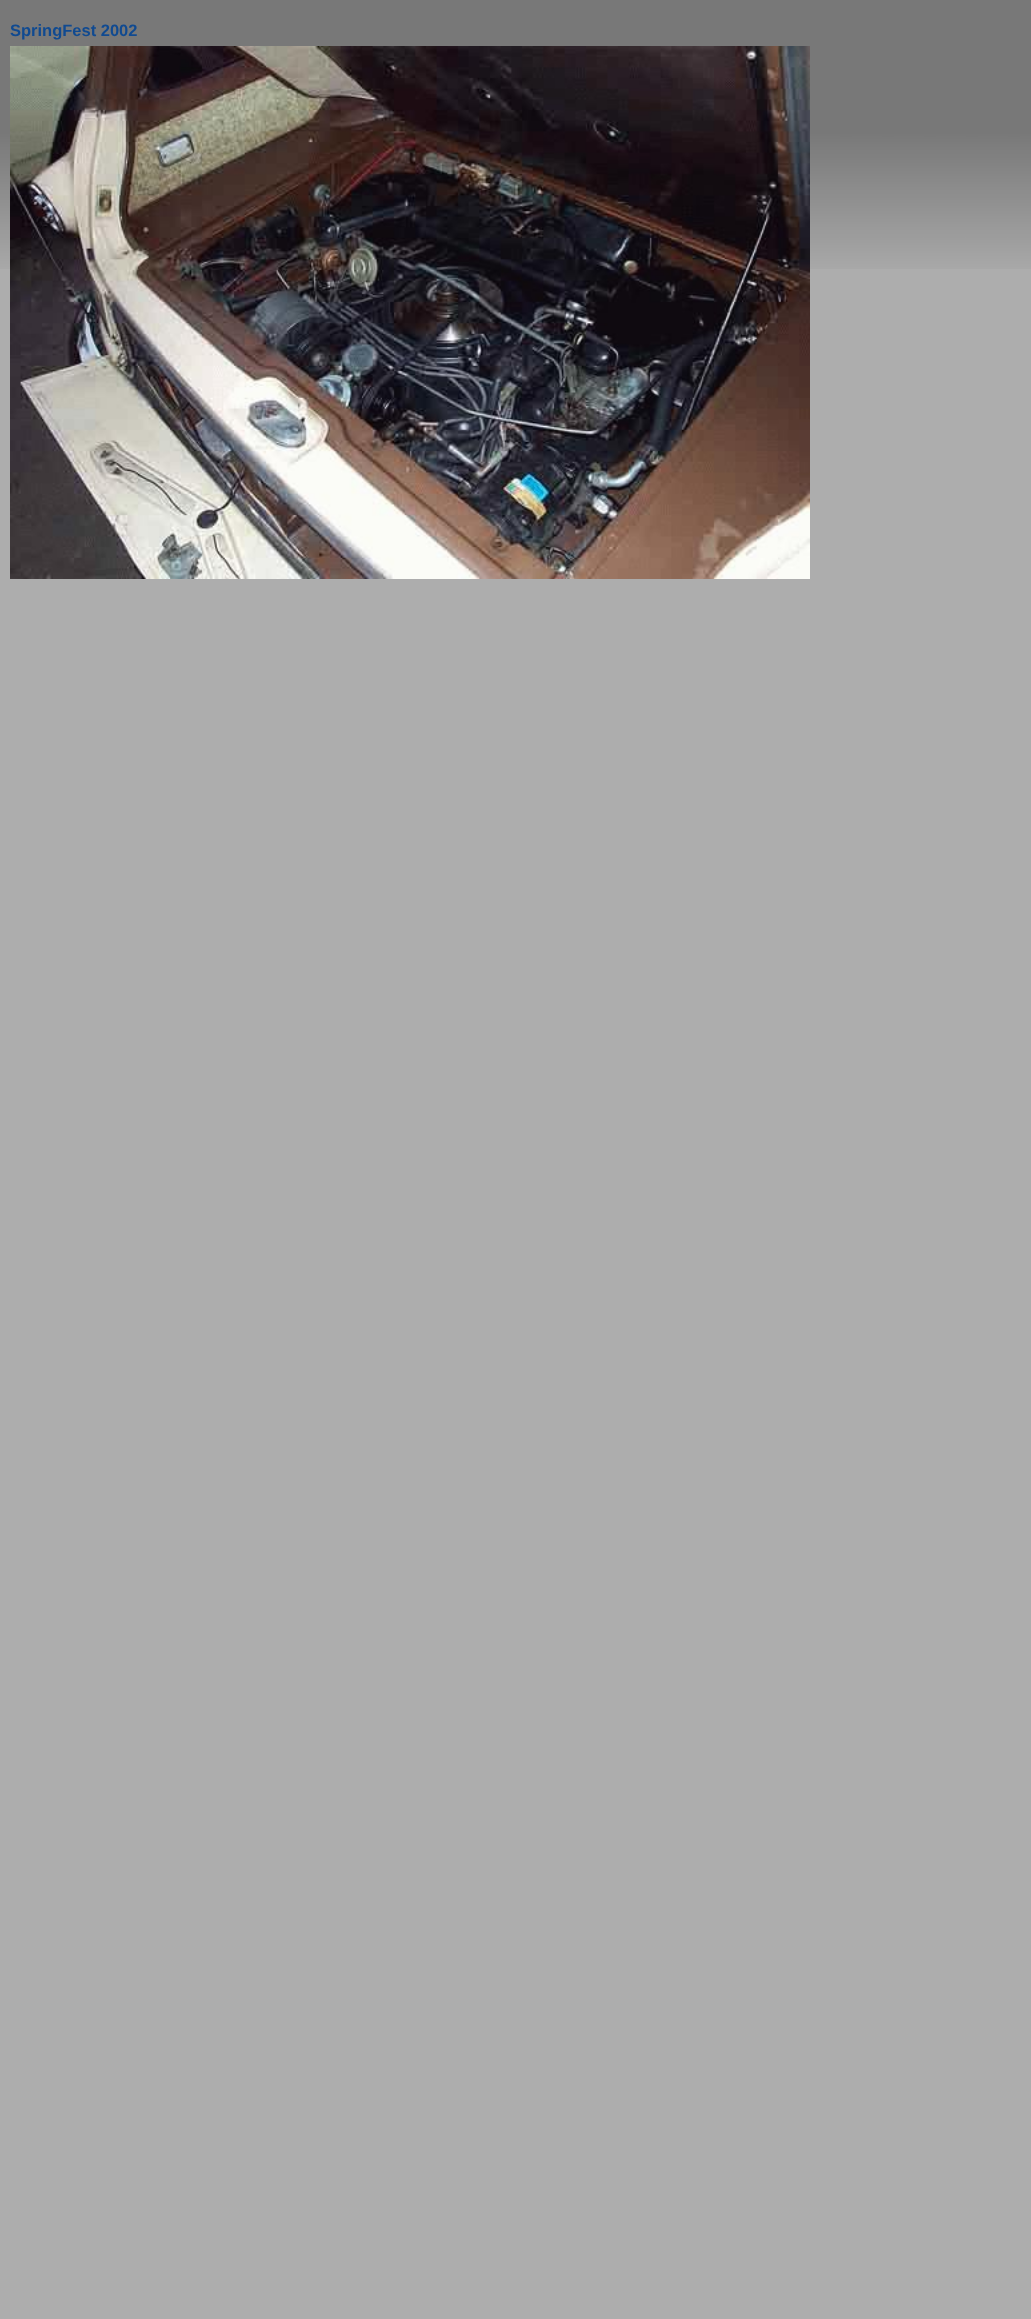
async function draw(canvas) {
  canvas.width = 1031
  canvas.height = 2319
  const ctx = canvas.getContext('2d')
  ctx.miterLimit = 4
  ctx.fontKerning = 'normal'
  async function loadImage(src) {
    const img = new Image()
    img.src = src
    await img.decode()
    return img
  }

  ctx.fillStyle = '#adadad'
  ctx.fillRect(0, 0, 1031, 2319)
  ctx.drawImage(await loadImage('image0.png'), 0, 0, 1031, 269)
  ctx.font = 'bold 16.5px Liberation Sans'
  ctx.fillStyle = '#104a91'
  ctx.fillText('SpringFest 2002', 10, 36)
  ctx.drawImage(await loadImage('image1.png'), 10, 46, 800, 533)
}

draw(document.querySelector('canvas'))
